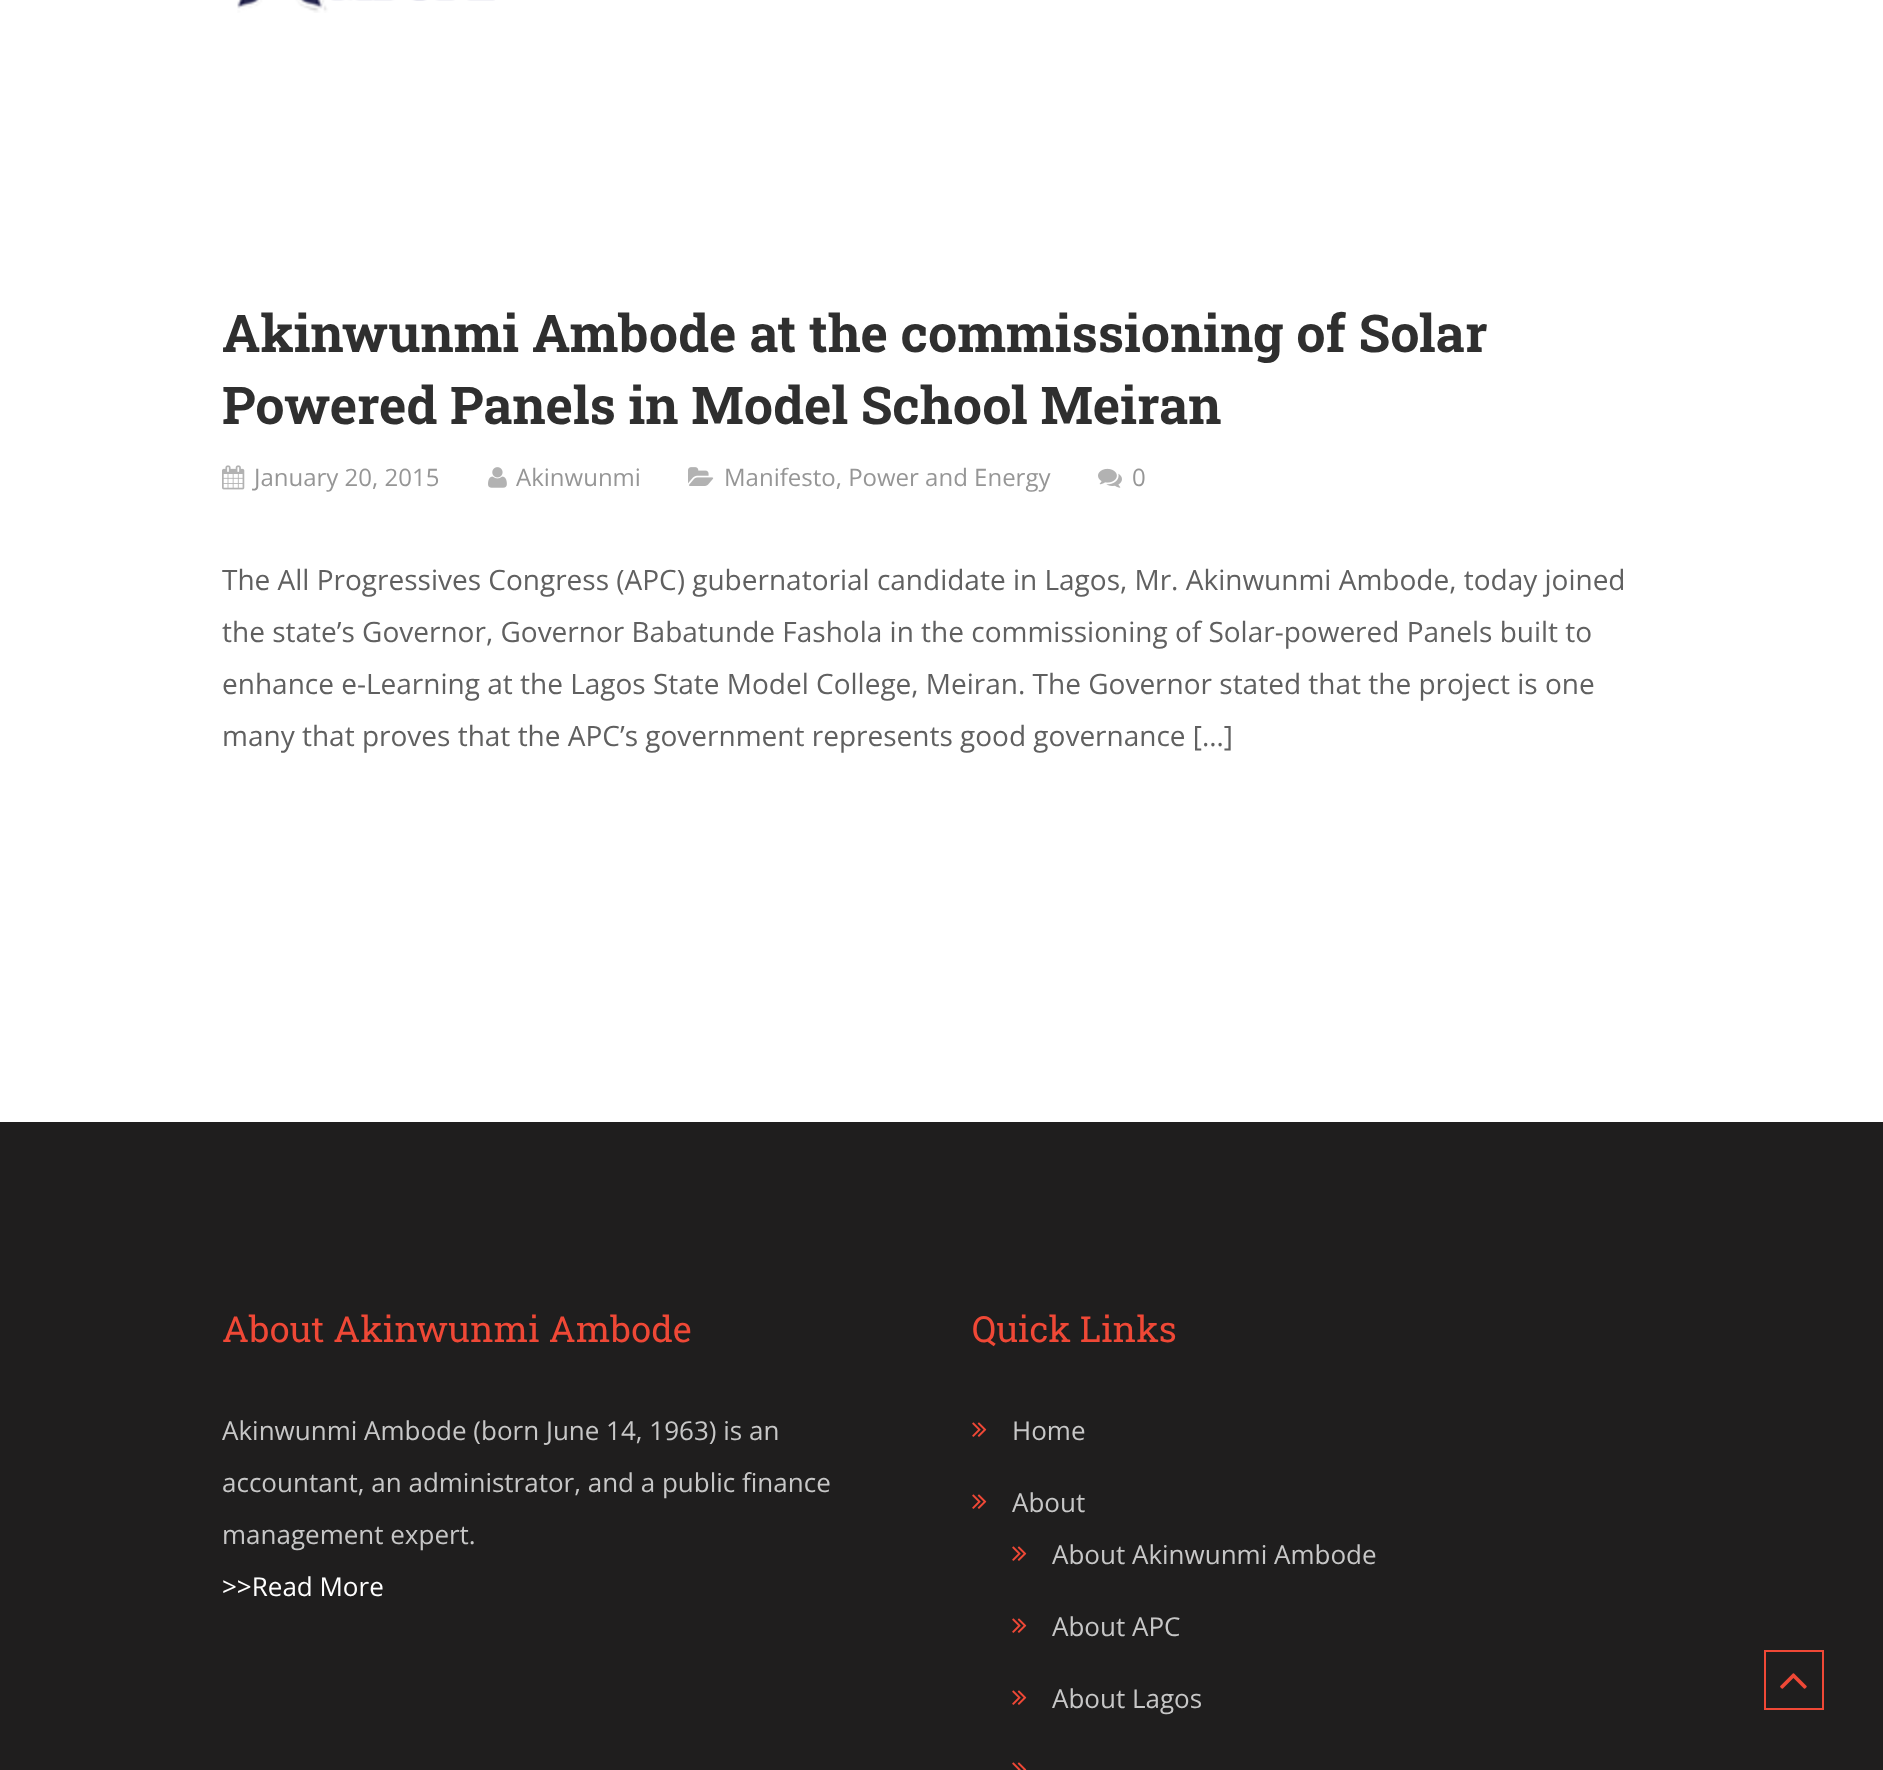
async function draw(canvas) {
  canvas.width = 1883
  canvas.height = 1770
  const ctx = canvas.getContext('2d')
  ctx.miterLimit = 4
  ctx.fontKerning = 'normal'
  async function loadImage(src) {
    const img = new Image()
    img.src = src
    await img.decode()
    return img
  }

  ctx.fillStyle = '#fff'
  ctx.fillRect(0, 0, 1883, 1770)
  ctx.drawImage(await loadImage('image0.png'), 237, 0, 258, 13)
  ctx.font = 'bold 52px Roboto Slab'
  ctx.fillStyle = '#2f2f2f'
  ctx.fillText('Akinwunmi Ambode at the commissioning of Solar', 222, 352)
  ctx.fillText('Powered Panels in Model School Meiran', 222, 424)
  ctx.drawImage(await loadImage('image1.png'), 222, 465, 23, 25)
  ctx.font = '24px Open Sans'
  ctx.fillStyle = '#969696'
  ctx.fillText('January 20, 2015', 254, 486)
  ctx.drawImage(await loadImage('image2.png'), 488, 467, 19, 21)
  ctx.fillText('Akinwunmi', 516, 486)
  ctx.drawImage(await loadImage('image3.png'), 688, 467, 26, 19)
  ctx.fillText('Manifesto, Power and Energy', 724, 486)
  ctx.drawImage(await loadImage('image4.png'), 1098, 468, 24, 20)
  ctx.fillText('0', 1132, 486)
  ctx.font = '28px Open Sans'
  ctx.fillStyle = '#606060'
  ctx.fillText('The All Progressives Congress (APC) gubernatorial candidate in Lagos, Mr. Akinwunmi Ambode, today joined', 222, 590)
  ctx.fillText('the state’s Governor, Governor Babatunde Fashola in the commissioning of Solar-powered Panels built to', 222, 642)
  ctx.fillText('enhance e-Learning at the Lagos State Model College, Meiran. The Governor stated that the project is one', 222, 694)
  ctx.fillText('many that proves that the APC’s government represents good governance […]', 222, 746)
  ctx.fillStyle = '#1f1e1e'
  ctx.fillRect(0, 1122, 1883, 648)
  ctx.font = '36px Roboto Slab'
  ctx.fillStyle = '#ef4836'
  ctx.fillText('About Akinwunmi Ambode', 222, 1342)
  ctx.font = '26px Open Sans'
  ctx.fillStyle = '#c7c7c7'
  ctx.fillText('Akinwunmi Ambode (born June 14, 1963) is an', 222, 1440)
  ctx.fillText('accountant, an administrator, and a public finance', 222, 1492)
  ctx.fillText('management expert.', 222, 1544)
  ctx.fillStyle = '#fff'
  ctx.fillText('>>Read More', 222, 1596)
  ctx.font = '36px Roboto Slab'
  ctx.fillStyle = '#ef4836'
  ctx.fillText('Quick Links', 972, 1342)
  ctx.drawImage(await loadImage('image5.png'), 972, 1422, 15, 15)
  ctx.font = '26px Open Sans'
  ctx.fillStyle = '#c7c7c7'
  ctx.fillText('Home', 1012, 1440)
  ctx.drawImage(await loadImage('image5.png'), 972, 1494, 15, 15)
  ctx.fillText('About', 1012, 1512)
  ctx.drawImage(await loadImage('image5.png'), 1012, 1546, 15, 15)
  ctx.fillText('About Akinwunmi Ambode', 1052, 1564)
  ctx.drawImage(await loadImage('image5.png'), 1012, 1618, 15, 15)
  ctx.fillText('About APC', 1052, 1636)
  ctx.drawImage(await loadImage('image5.png'), 1012, 1690, 15, 15)
  ctx.fillText('About Lagos', 1052, 1708)
  ctx.drawImage(await loadImage('image6.png'), 1012, 1762, 15, 8)
  ctx.strokeStyle = '#ef4836'
  ctx.lineWidth = 2
  ctx.strokeRect(1765, 1651, 58, 58)
  ctx.drawImage(await loadImage('image7.png'), 1780, 1673, 27, 16)
}

draw(document.querySelector('canvas'))
